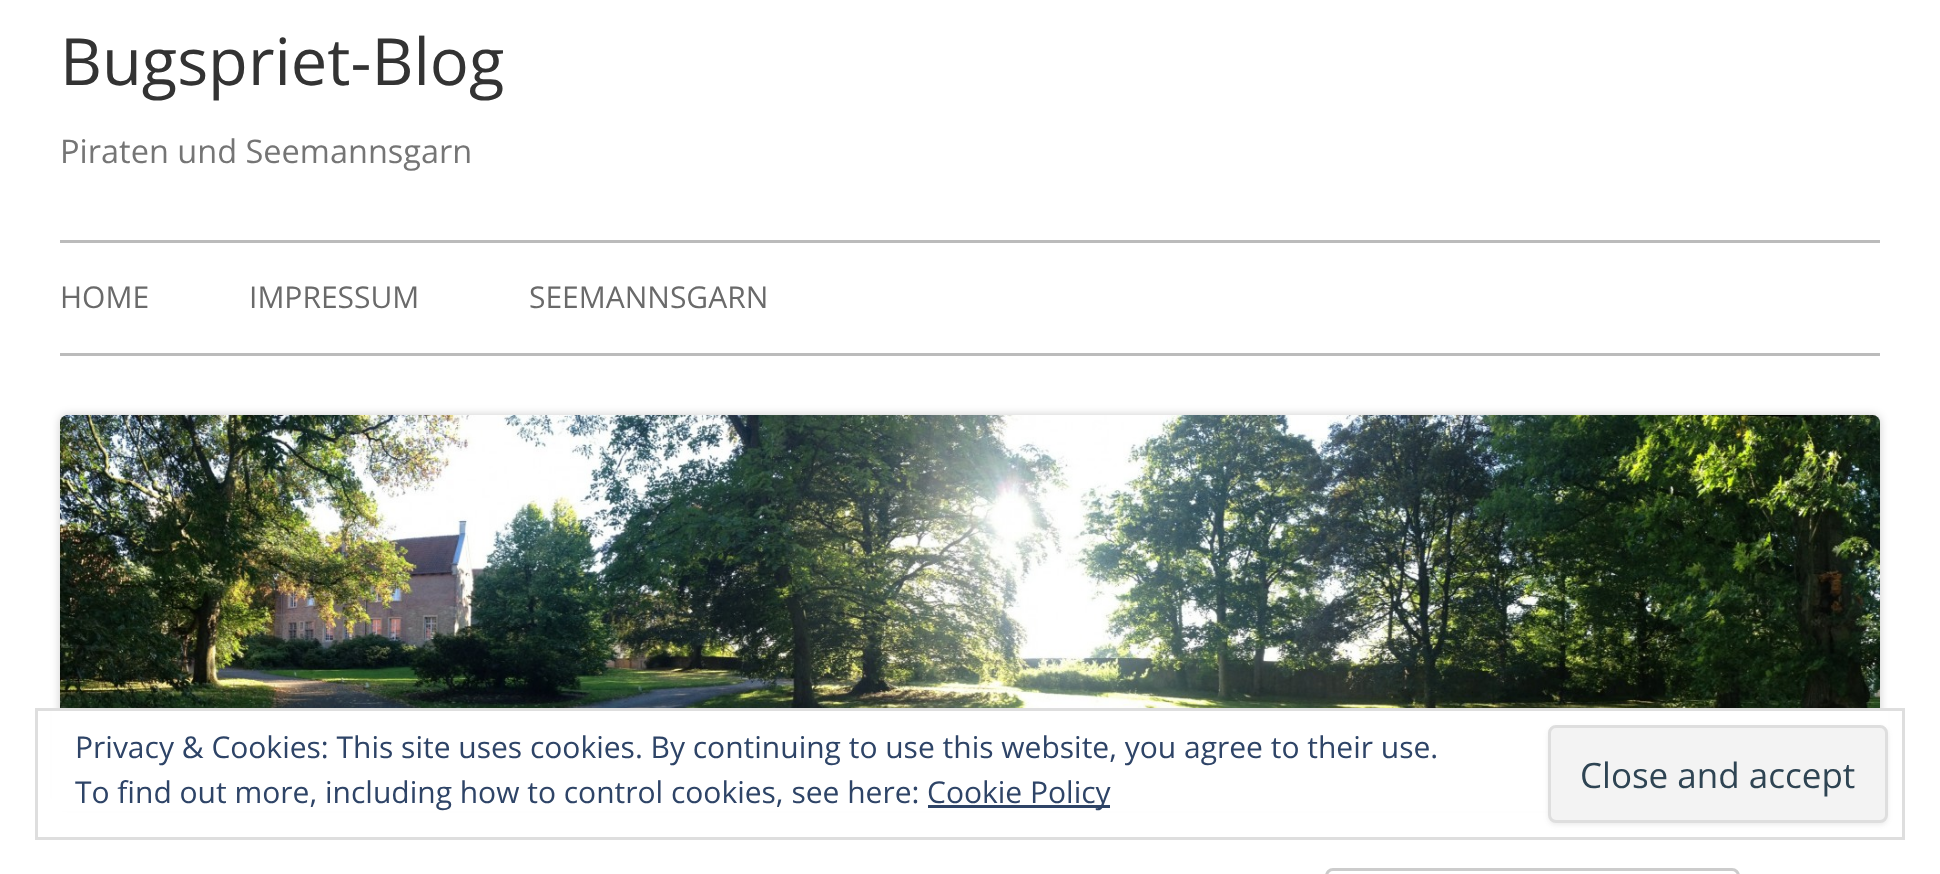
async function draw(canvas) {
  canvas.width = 1940
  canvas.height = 874
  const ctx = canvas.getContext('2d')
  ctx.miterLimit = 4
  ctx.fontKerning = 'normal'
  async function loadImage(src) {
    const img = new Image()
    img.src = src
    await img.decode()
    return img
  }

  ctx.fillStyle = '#fff'
  ctx.fillRect(0, 0, 1940, 874)
  ctx.font = '65px Open Sans'
  ctx.fillStyle = '#333'
  ctx.fillText('Bugspriet-Blog', 60, 85)
  ctx.font = '32.5px Open Sans'
  ctx.fillStyle = '#757575'
  ctx.fillText('Piraten und Seemannsgarn', 60, 163)
  ctx.fillStyle = '#bbb'
  ctx.fillRect(60, 240, 1820, 3)
  ctx.fillRect(60, 353, 1820, 3)
  ctx.font = '30px Open Sans'
  ctx.fillStyle = '#6a6a6a'
  ctx.fillText('HOME', 60, 308)
  ctx.fillText('IMPRESSUM', 249, 308)
  ctx.fillText('SEEMANNSGARN', 529, 308)
  ctx.fillStyle = '#00000033'
  ctx.filter = 'blur(5px)'
  ctx.beginPath()
  ctx.roundRect(60, 415, 1820, 388, 8)
  ctx.fill()
  ctx.filter = 'none'
  ctx.drawImage(await loadImage('image0.png'), 60, 415, 1820, 293)
  ctx.beginPath()
  ctx.roundRect(1326.5, 869.5, 412, 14, 6.5)
  ctx.strokeStyle = '#ccc'
  ctx.lineWidth = 3
  ctx.stroke()
  ctx.fillStyle = '#fff'
  ctx.fillRect(52, 711, 1836, 100)
  ctx.strokeStyle = '#dedede'
  ctx.strokeRect(36.5, 709.5, 1867, 129)
  ctx.fillStyle = '#2e4467'
  ctx.fillText('Privacy & Cookies: This site uses cookies. By continuing to use this website, you agree to their use.', 75, 758)
  ctx.fillText('To find out more, including how to control cookies, see here:', 75, 803)
  ctx.fillRect(928, 805, 182, 3)
  ctx.fillText('Cookie Policy', 927, 803)
  ctx.fillStyle = '#4040401a'
  ctx.filter = 'blur(2.5px)'
  ctx.beginPath()
  ctx.roundRect(1548, 728, 340, 97, 8)
  ctx.fill()
  ctx.filter = 'none'
  ctx.fillStyle = '#f3f3f3'
  ctx.beginPath()
  ctx.roundRect(1549.5, 726.5, 337, 95, 6.5)
  ctx.fill()
  ctx.stroke()
  ctx.font = '35px Open Sans'
  ctx.fillStyle = '#2e4453'
  ctx.fillText('Close and accept', 1580, 788)
}

draw(document.querySelector('canvas'))
